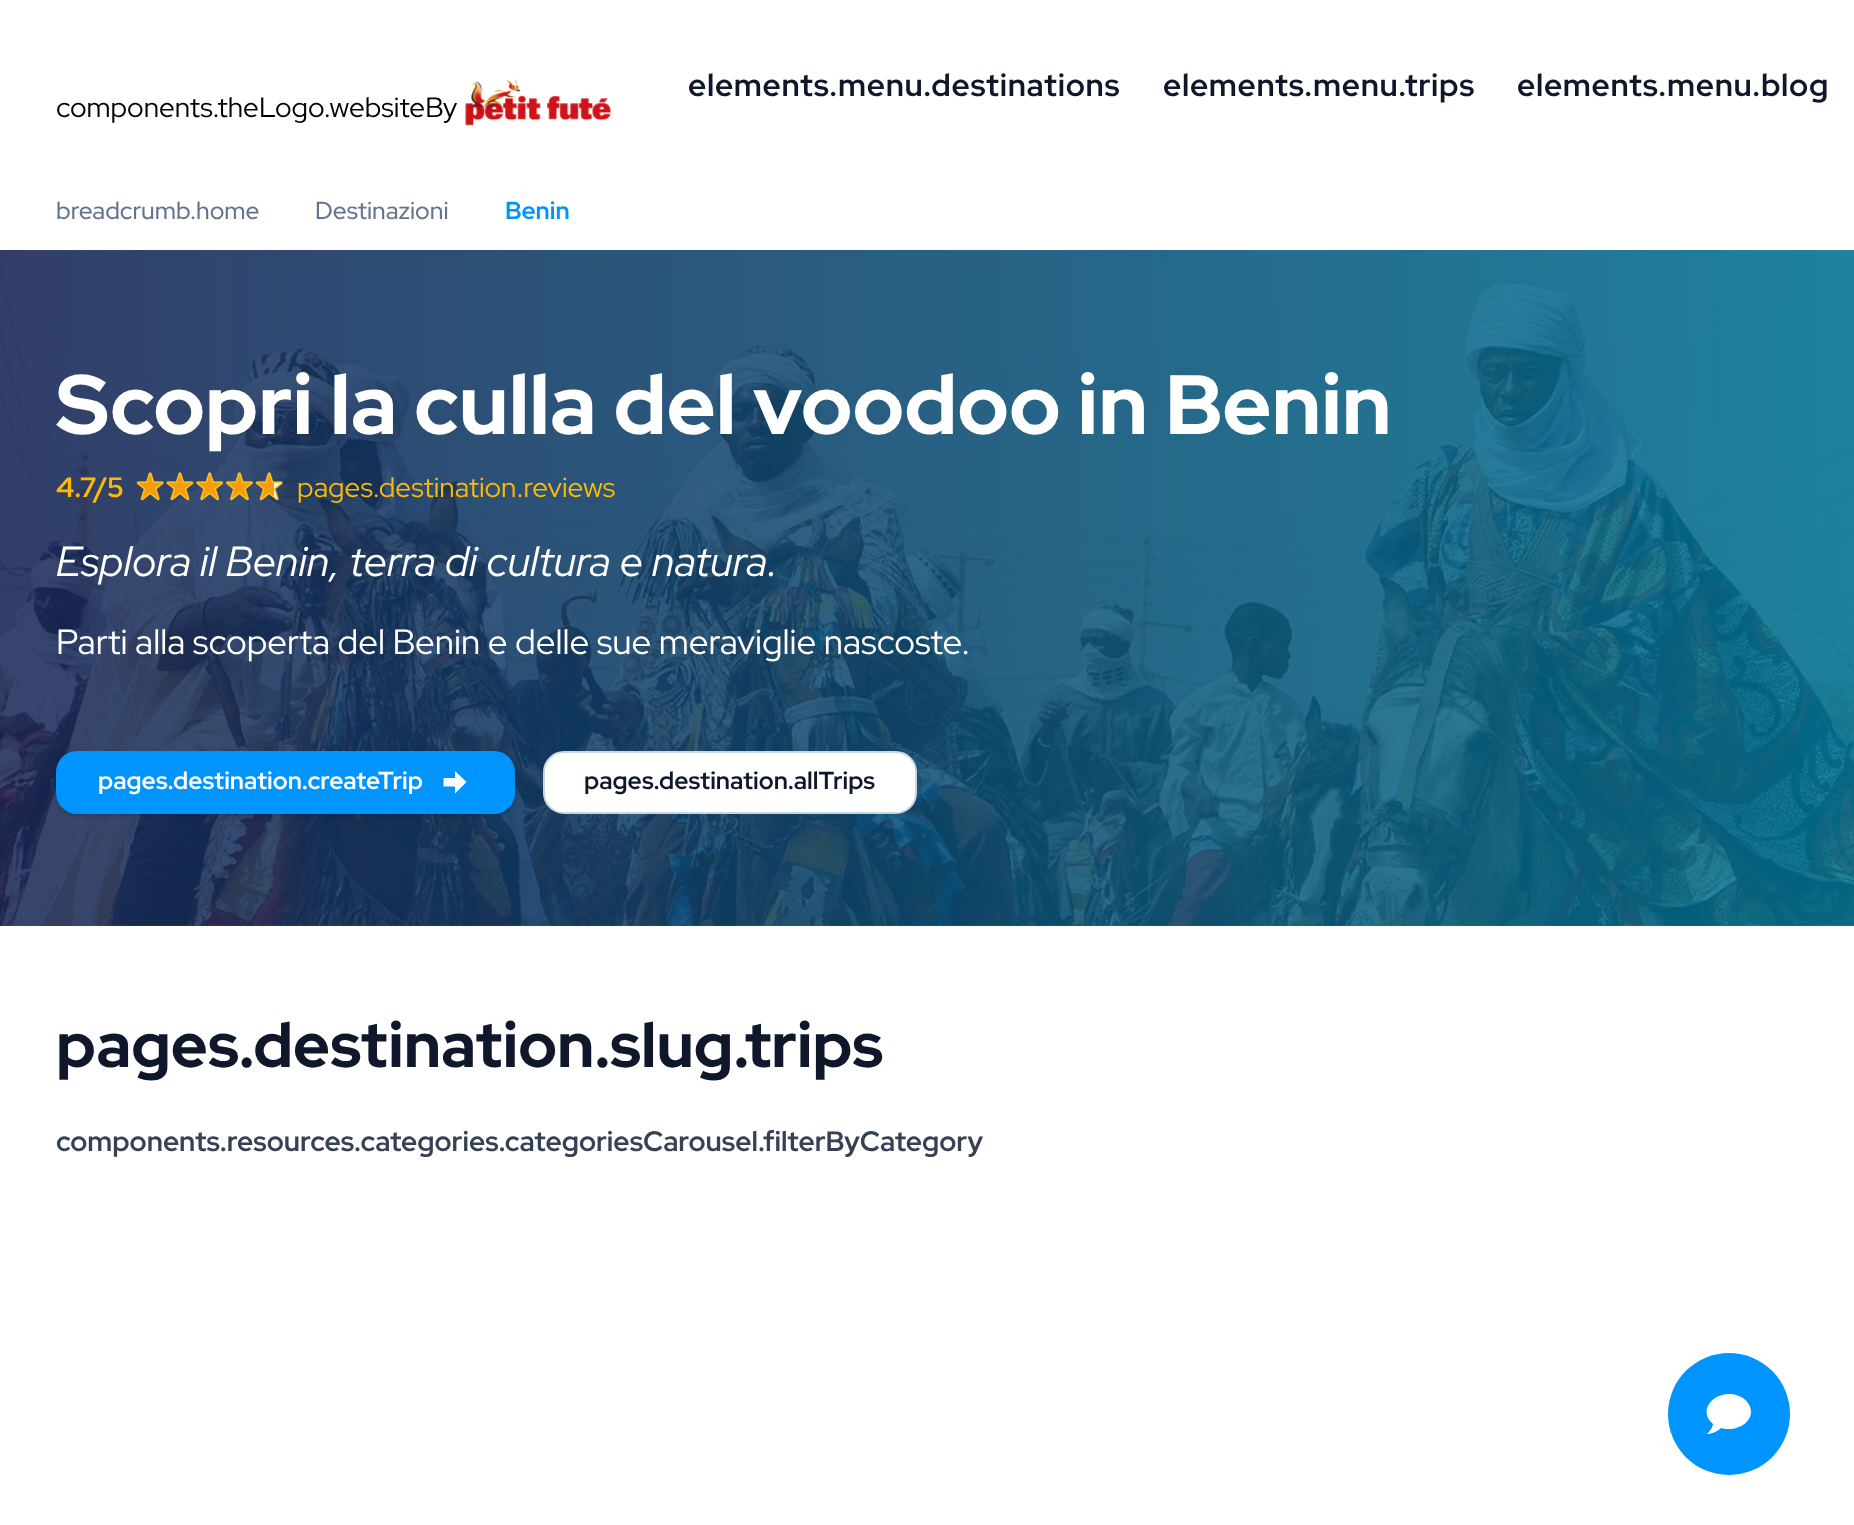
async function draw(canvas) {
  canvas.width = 1854
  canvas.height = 1525
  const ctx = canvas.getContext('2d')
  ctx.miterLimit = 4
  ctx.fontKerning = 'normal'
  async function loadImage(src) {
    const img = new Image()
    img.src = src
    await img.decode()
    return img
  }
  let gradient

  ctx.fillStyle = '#fff'
  ctx.fillRect(0, 0, 1854, 1525)
  ctx.letterSpacing = '0.7px'
  ctx.font = 'bold 31.5px Red Hat Display'
  ctx.fillStyle = '#0f172b'
  ctx.fillText('elements.menu.destinations', 688, 96)
  ctx.fillText('elements.menu.trips', 1163, 96)
  ctx.fillText('elements.menu.blog', 1517, 96)
  ctx.letterSpacing = '0px'
  ctx.font = '28px Red Hat Display'
  ctx.fillStyle = '#000'
  ctx.fillText('components.theLogo.websiteBy', 56, 117)
  ctx.drawImage(await loadImage('image0.png'), 465, 79, 147, 47)
  ctx.font = '500 24.5px Red Hat Display'
  ctx.fillStyle = '#62748e'
  ctx.fillText('breadcrumb.home', 56, 219)
  ctx.fillText('Destinazioni', 315, 219)
  ctx.font = 'bold 24.5px Red Hat Display'
  ctx.fillStyle = '#0094ff'
  ctx.fillText('Benin', 505, 219)
  ctx.drawImage(await loadImage('image1.png'), 0, 250, 1854, 676)
  gradient = ctx.createLinearGradient(0, 588, 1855, 588)
  gradient.addColorStop(0, '#162556d9')
  gradient.addColorStop(1, '#007595d9')
  ctx.fillStyle = gradient
  ctx.fillRect(0, 250, 1854, 676)
  ctx.font = '800 84px Red Hat Display'
  ctx.fillStyle = '#fff'
  ctx.fillText('Scopri la culla del voodoo in Benin', 56, 434)
  ctx.font = 'bold 28px Red Hat Display'
  ctx.fillStyle = '#ffb900'
  ctx.fillText('4.7/5', 56, 497)
  ctx.drawImage(await loadImage('image2.png'), 136, 472, 28, 29)
  ctx.drawImage(await loadImage('image3.png'), 166, 472, 28, 29)
  ctx.drawImage(await loadImage('image4.png'), 196, 472, 28, 29)
  ctx.drawImage(await loadImage('image5.png'), 226, 472, 27, 29)
  ctx.drawImage(await loadImage('image6.png'), 255, 472, 28, 29)
  ctx.font = '28px Red Hat Display'
  ctx.fillText('pages.destination.reviews', 297, 497)
  ctx.font = 'italic 42px Red Hat Display'
  ctx.fillStyle = '#fff'
  ctx.fillText('Esplora il Benin, terra di cultura e natura.', 56, 576)
  ctx.font = '35px Red Hat Display'
  ctx.fillText('Parti alla scoperta del Benin e delle sue meraviglie nascoste.', 56, 654)
  ctx.fillStyle = '#0000001a'
  ctx.filter = 'blur(2px)'
  ctx.beginPath()
  ctx.roundRect(58, 754, 455, 60, 19)
  ctx.fill()
  ctx.filter = 'none'
  ctx.filter = 'blur(2.5px)'
  ctx.beginPath()
  ctx.roundRect(56, 753, 459, 63, 21)
  ctx.fill()
  ctx.filter = 'none'
  ctx.fillStyle = '#0094ff'
  ctx.beginPath()
  ctx.roundRect(56, 751, 459, 63, 21)
  ctx.fill()
  ctx.font = 'bold 24.5px Red Hat Display'
  ctx.fillStyle = '#fff'
  ctx.fillText('pages.destination.createTrip', 98, 789)
  ctx.beginPath()
  ctx.moveTo(443.5, 786.5)
  ctx.lineTo(443.5, 778)
  ctx.lineTo(455, 778)
  ctx.lineTo(455, 771)
  ctx.lineTo(466.5, 782)
  ctx.lineTo(455, 793.5)
  ctx.lineTo(455, 786.5)
  ctx.closePath()
  ctx.fill()
  ctx.beginPath()
  ctx.roundRect(544, 752, 372, 61, 20)
  ctx.fill()
  ctx.strokeStyle = '#cad5e2'
  ctx.lineWidth = 2
  ctx.stroke()
  ctx.fillStyle = '#0f172b'
  ctx.fillText('pages.destination.allTrips', 584, 789)
  ctx.font = '800 63px Red Hat Display'
  ctx.fillText('pages.destination.slug.trips', 56, 1067)
  ctx.font = 'bold 28px Red Hat Display'
  ctx.fillStyle = '#364153'
  ctx.fillText('components.resources.categories.categoriesCarousel.filterByCategory', 56, 1151)
  ctx.fillStyle = '#0094ff'
  ctx.beginPath()
  ctx.arc(1729, 1414, 61, 0, 2 * Math.PI)
  ctx.fill()
  ctx.fillStyle = '#fff'
  ctx.beginPath()
  ctx.moveTo(1729, 1394)
  ctx.bezierCurveTo(1741, 1394, 1751, 1402, 1751, 1412)
  ctx.bezierCurveTo(1751, 1421, 1741, 1429, 1729, 1429)
  ctx.bezierCurveTo(1726, 1429, 1724, 1429, 1721, 1428)
  ctx.bezierCurveTo(1715, 1434, 1707, 1434, 1707, 1434)
  ctx.bezierCurveTo(1712, 1429, 1713, 1425, 1713, 1424)
  ctx.bezierCurveTo(1698, 1411, 1712, 1394, 1729, 1394)
  ctx.fill()
}

draw(document.querySelector('canvas'))
